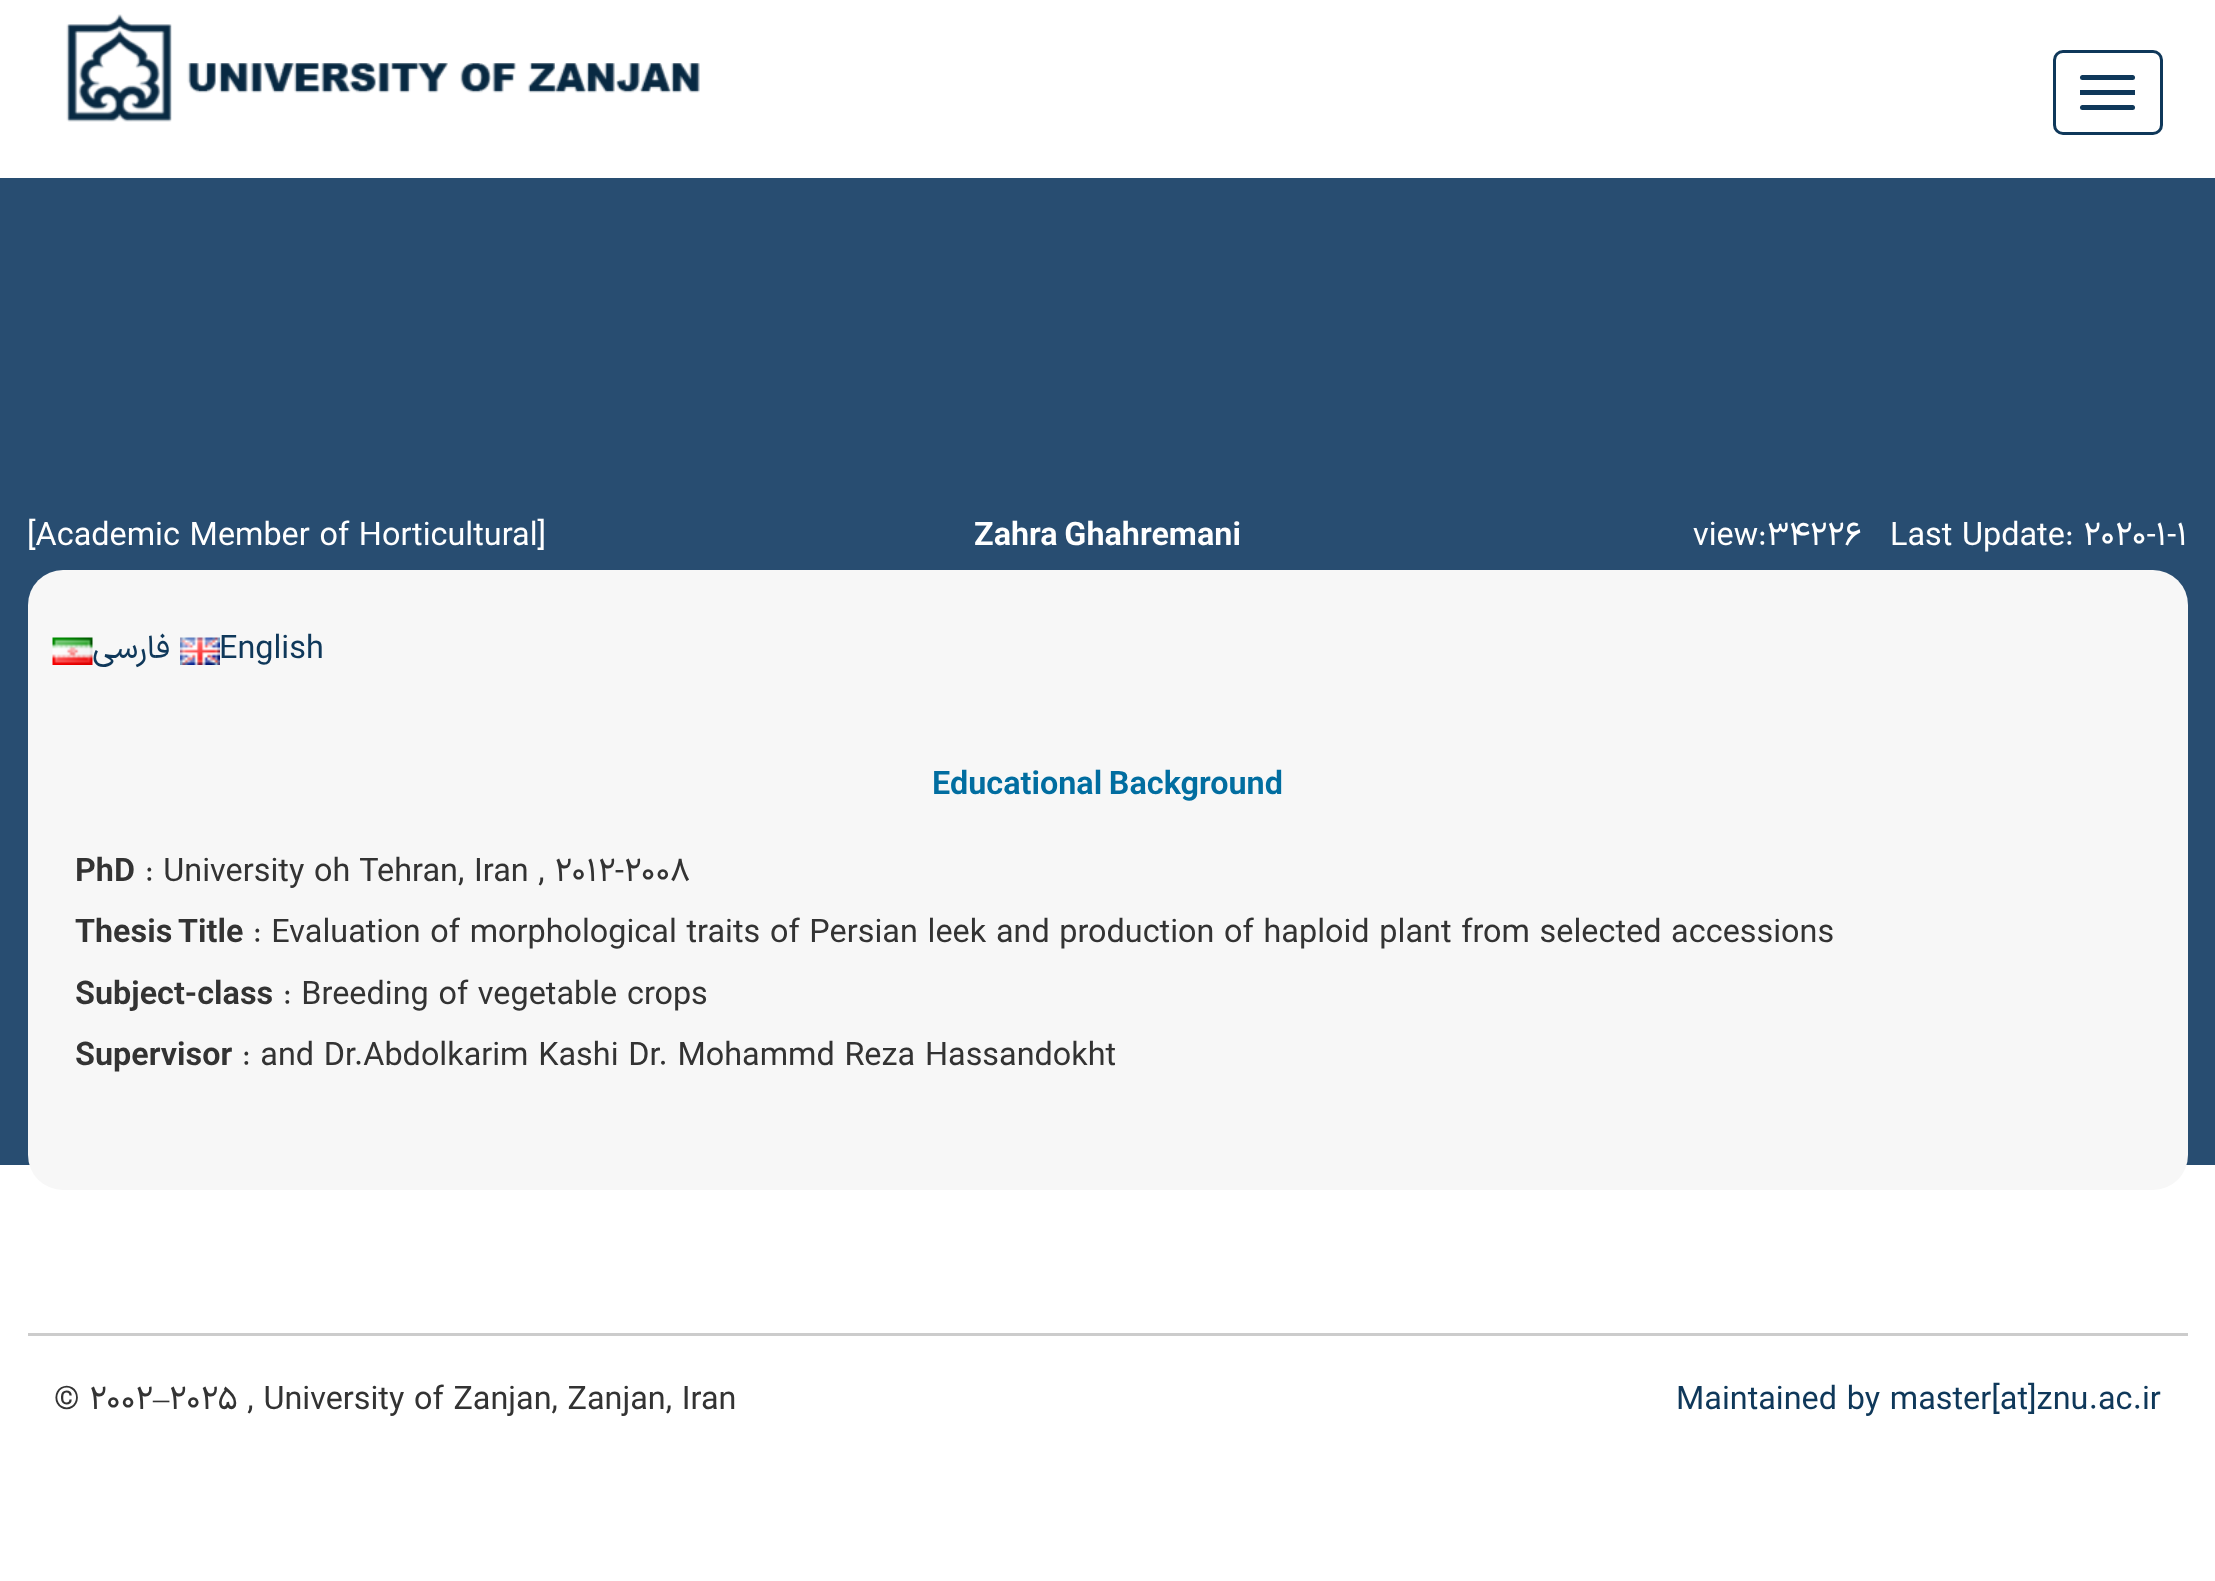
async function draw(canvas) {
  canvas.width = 2215
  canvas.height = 1581
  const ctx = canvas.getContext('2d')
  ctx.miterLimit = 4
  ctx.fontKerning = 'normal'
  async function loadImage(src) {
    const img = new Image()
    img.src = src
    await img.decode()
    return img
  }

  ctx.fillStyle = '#fff'
  ctx.fillRect(0, 0, 2215, 1581)
  ctx.fillStyle = '#284d71'
  ctx.fillRect(0, 178, 2215, 987)
  ctx.drawImage(await loadImage('image0.png'), 66, 14, 634, 108)
  ctx.beginPath()
  ctx.roundRect(2054.5, 51.5, 107, 82, 8.5)
  ctx.strokeStyle = '#0f385a'
  ctx.lineWidth = 3
  ctx.stroke()
  ctx.fillStyle = '#0f385a'
  ctx.beginPath()
  ctx.roundRect(2080, 75, 55, 5, 2.5)
  ctx.fill()
  ctx.fillRect(2080, 90, 55, 5)
  ctx.beginPath()
  ctx.roundRect(2080, 105, 55, 5, 2.5)
  ctx.fill()
  ctx.font = '32.4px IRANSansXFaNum'
  ctx.fillStyle = '#fff'
  ctx.fillText('[Academic Member of Horticultural]', 27, 545)
  ctx.font = 'bold 32.4px IRANSansXFaNum'
  ctx.fillText('Zahra Ghahremani', 974, 545)
  ctx.font = '32.4px IRANSansXFaNum'
  ctx.fillText('view:34226', 1693, 545)
  ctx.fillText('Last Update: 2020-1-1', 1890, 545)
  ctx.fillStyle = '#f7f7f7'
  ctx.beginPath()
  ctx.roundRect(28, 570, 2160, 620, 35)
  ctx.fill()
  ctx.drawImage(await loadImage('image1.png'), 52, 637, 41, 28)
  ctx.direction = 'rtl'
  ctx.fillStyle = '#0f385a'
  ctx.fillText('فارسی', 170, 658)
  ctx.drawImage(await loadImage('image2.png'), 180, 637, 40, 28)
  ctx.direction = 'ltr'
  ctx.fillText('English', 219, 658)
  ctx.font = 'bold 32.4px IRANSansXFaNum'
  ctx.fillStyle = '#016da0'
  ctx.fillText('Educational Background', 932, 794)
  ctx.fillStyle = '#333'
  ctx.fillText('PhD', 75, 881)
  ctx.font = '32.4px IRANSansXFaNum'
  ctx.fillText(': University oh Tehran, Iran , 2012-2008', 145, 881)
  ctx.font = 'bold 32.4px IRANSansXFaNum'
  ctx.fillText('Thesis Title', 75, 942)
  ctx.font = '32.4px IRANSansXFaNum'
  ctx.fillText(': Evaluation of morphological traits of Persian leek and production of haploid plant from selected accessions', 253, 942)
  ctx.font = 'bold 32.4px IRANSansXFaNum'
  ctx.fillText('Subject-class', 75, 1004)
  ctx.font = '32.4px IRANSansXFaNum'
  ctx.fillText(': Breeding of vegetable crops', 283, 1004)
  ctx.font = 'bold 32.4px IRANSansXFaNum'
  ctx.fillText('Supervisor', 75, 1065)
  ctx.font = '32.4px IRANSansXFaNum'
  ctx.fillText(': and Dr.Abdolkarim Kashi Dr. Mohammd Reza Hassandokht', 242, 1065)
  ctx.fillStyle = '#ccc'
  ctx.fillRect(28, 1333, 2160, 3)
  ctx.fillStyle = '#333'
  ctx.fillText('© 2002', 54, 1409)
  ctx.font = '32.4px Liberation Serif'
  ctx.fillText('–', 153, 1409)
  ctx.font = '32.4px IRANSansXFaNum'
  ctx.fillText('2025 , University of Zanjan, Zanjan, Iran', 169, 1409)
  ctx.fillStyle = '#0f385a'
  ctx.fillText('Maintained by master[at]znu.ac.ir', 1676, 1409)
}

draw(document.querySelector('canvas'))
